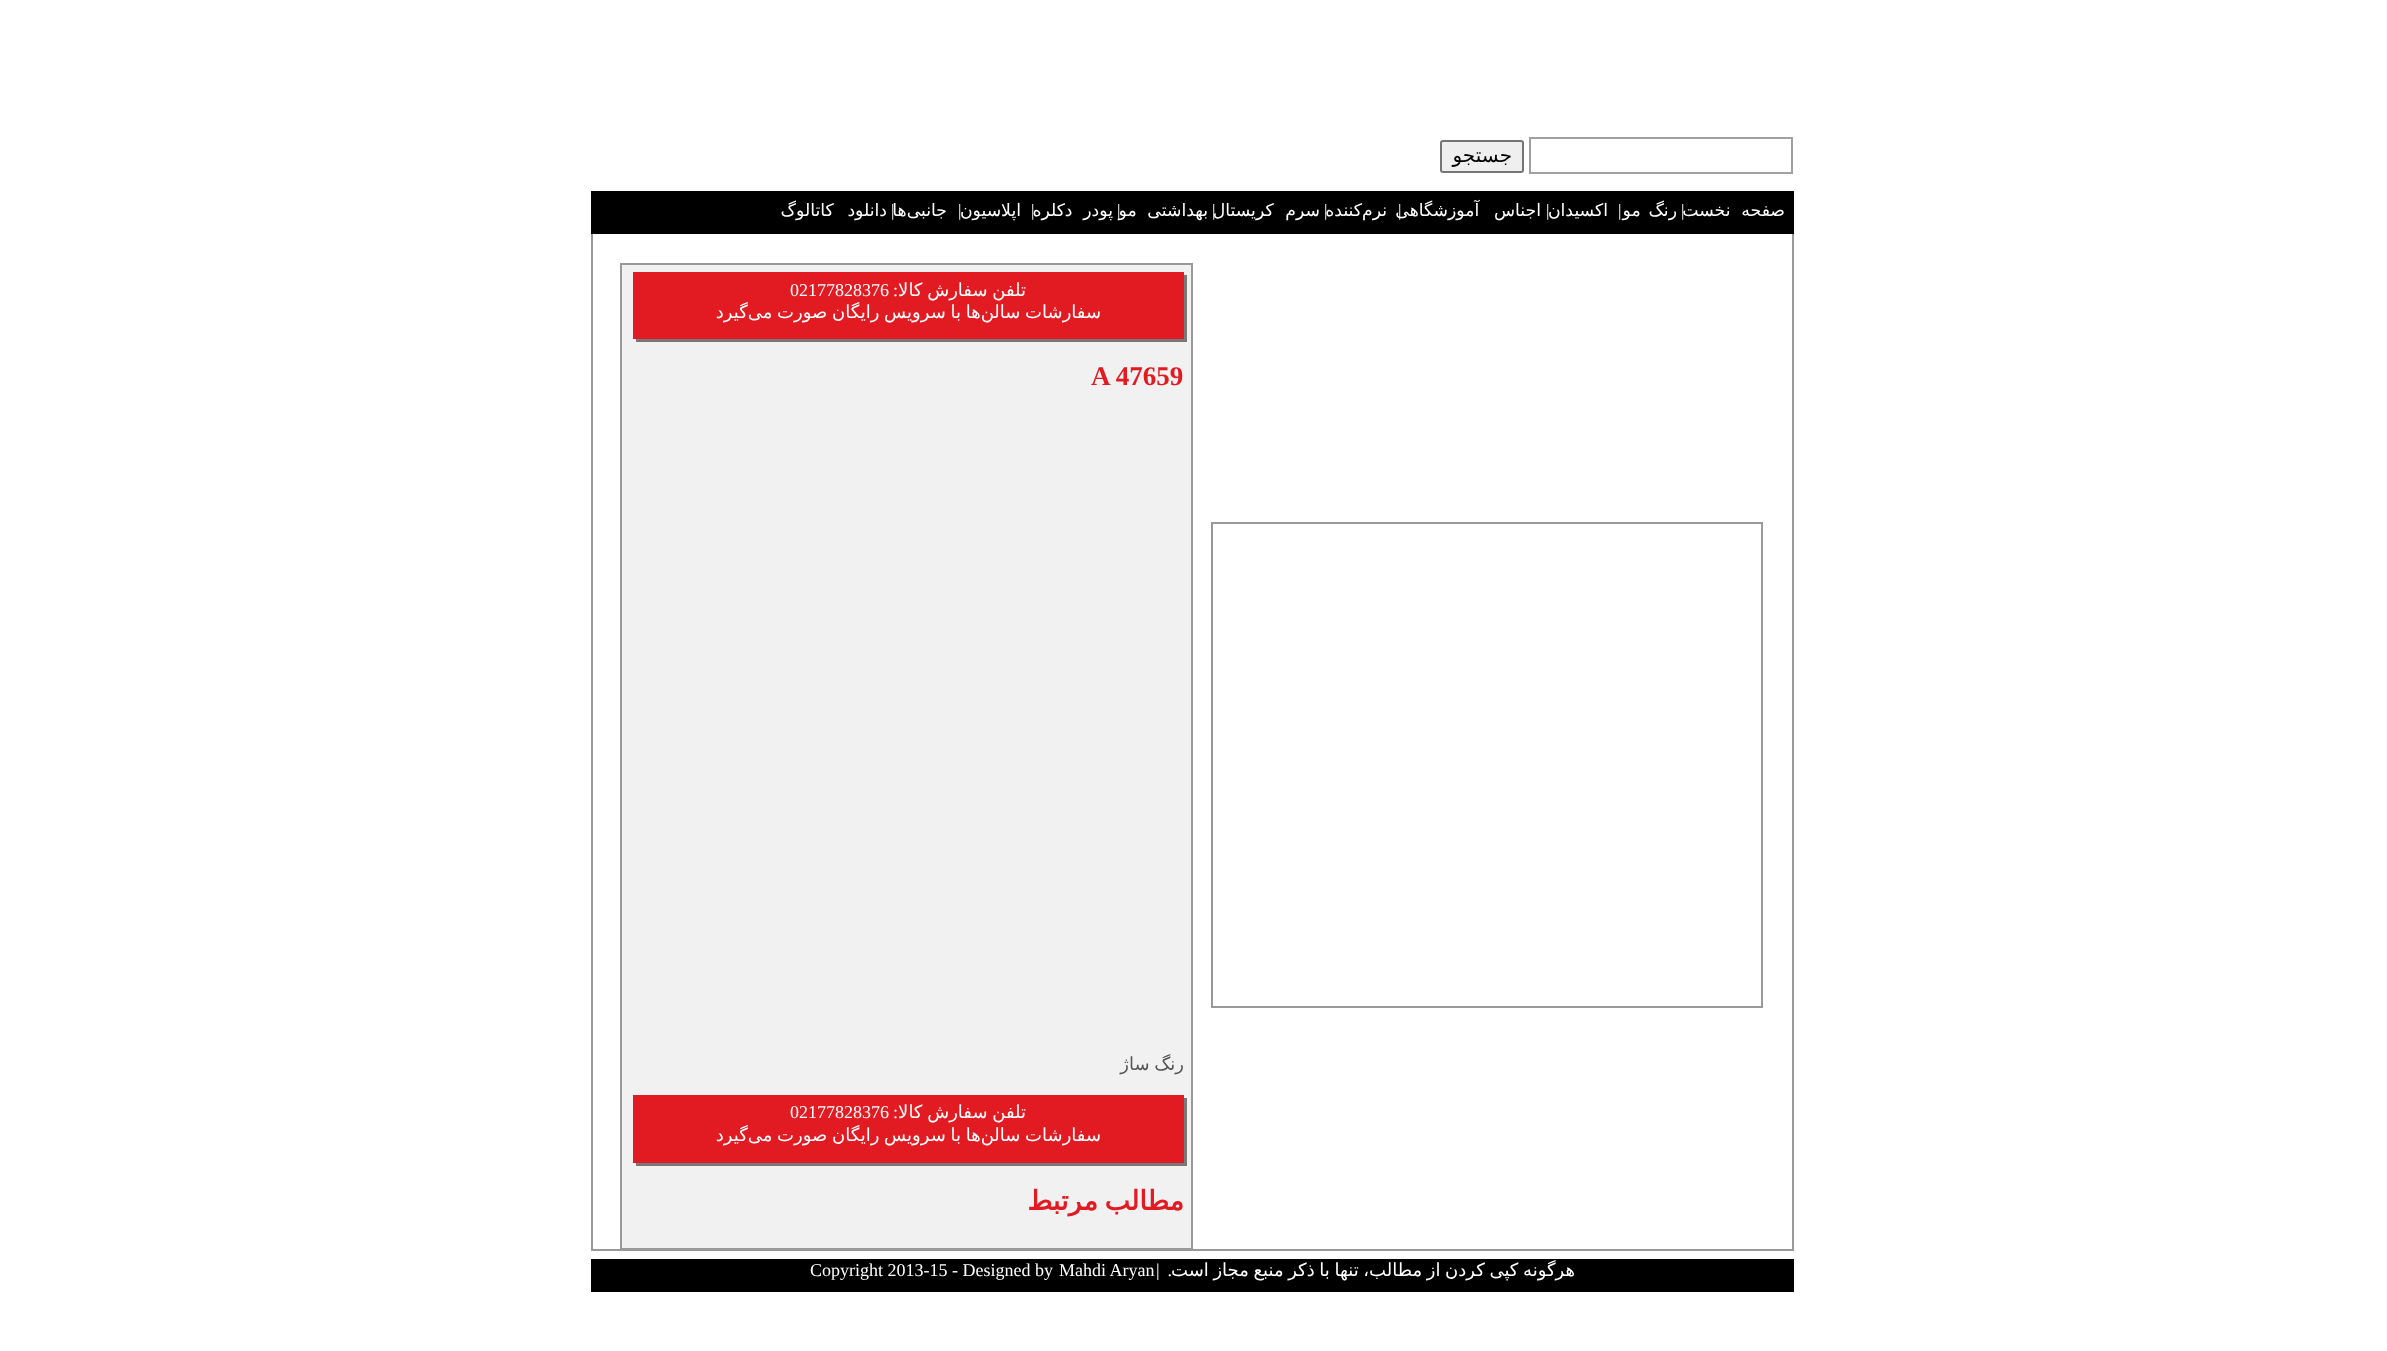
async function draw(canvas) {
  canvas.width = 2387
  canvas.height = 1351
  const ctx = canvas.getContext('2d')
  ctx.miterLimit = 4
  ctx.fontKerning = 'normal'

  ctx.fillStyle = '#fff'
  ctx.fillRect(0, 0, 2387, 1351)
  ctx.strokeStyle = '#a0a0a0'
  ctx.lineWidth = 2
  ctx.strokeRect(1530, 138, 262, 35)
  ctx.fillStyle = '#efefef'
  ctx.beginPath()
  ctx.roundRect(1441, 141, 82, 31, 2)
  ctx.fill()
  ctx.strokeStyle = '#767676'
  ctx.stroke()
  ctx.direction = 'rtl'
  ctx.font = '20px DejaVu Sans'
  ctx.fillStyle = '#000'
  ctx.fillText('جستجو', 1512, 162)
  ctx.strokeStyle = '#999'
  ctx.strokeRect(592, 192, 1201, 1058)
  ctx.fillRect(591, 191, 1203, 43)
  ctx.letterSpacing = '-0.75px'
  ctx.wordSpacing = '6px'
  ctx.font = '17.25px DejaVu Sans'
  ctx.fillStyle = '#fff'
  ctx.fillText('صفحه نخست', 1785, 216)
  ctx.wordSpacing = '0px'
  ctx.direction = 'ltr'
  ctx.font = '17.25px Liberation Serif'
  ctx.fillText('|', 1681, 216)
  ctx.wordSpacing = '3px'
  ctx.direction = 'rtl'
  ctx.font = '17.25px DejaVu Sans'
  ctx.fillText('رنگ مو', 1677, 216)
  ctx.wordSpacing = '0px'
  ctx.direction = 'ltr'
  ctx.font = '17.25px Liberation Serif'
  ctx.fillText('|', 1618, 216)
  ctx.direction = 'rtl'
  ctx.font = '17.25px DejaVu Sans'
  ctx.fillText('اکسیدان', 1608, 216)
  ctx.direction = 'ltr'
  ctx.font = '17.25px Liberation Serif'
  ctx.fillText('|', 1546, 216)
  ctx.wordSpacing = '10px'
  ctx.direction = 'rtl'
  ctx.font = '17.25px DejaVu Sans'
  ctx.fillText('اجناس آموزشگاهی', 1541, 216)
  ctx.wordSpacing = '0px'
  ctx.direction = 'ltr'
  ctx.font = '17.25px Liberation Serif'
  ctx.fillText('|', 1398, 216)
  ctx.direction = 'rtl'
  ctx.font = '17.25px DejaVu Sans'
  ctx.fillText('نرم‌کننده', 1387, 216)
  ctx.direction = 'ltr'
  ctx.font = '17.25px Liberation Serif'
  ctx.fillText('|', 1324, 216)
  ctx.wordSpacing = '7px'
  ctx.direction = 'rtl'
  ctx.font = '17.25px DejaVu Sans'
  ctx.fillText('سرم کریستال', 1320, 216)
  ctx.wordSpacing = '0px'
  ctx.direction = 'ltr'
  ctx.font = '17.25px Liberation Serif'
  ctx.fillText('|', 1212, 216)
  ctx.wordSpacing = '6px'
  ctx.direction = 'rtl'
  ctx.font = '17.25px DejaVu Sans'
  ctx.fillText('بهداشتی مو', 1208, 216)
  ctx.wordSpacing = '0px'
  ctx.direction = 'ltr'
  ctx.font = '17.25px Liberation Serif'
  ctx.fillText('|', 1117, 216)
  ctx.wordSpacing = '6px'
  ctx.direction = 'rtl'
  ctx.font = '17.25px DejaVu Sans'
  ctx.fillText('پودر دکلره', 1113, 216)
  ctx.wordSpacing = '0px'
  ctx.direction = 'ltr'
  ctx.font = '17.25px Liberation Serif'
  ctx.fillText('|', 1031, 216)
  ctx.direction = 'rtl'
  ctx.font = '17.25px DejaVu Sans'
  ctx.fillText('اپلاسیون', 1021, 216)
  ctx.direction = 'ltr'
  ctx.font = '17.25px Liberation Serif'
  ctx.fillText('|', 958, 216)
  ctx.direction = 'rtl'
  ctx.font = '17.25px DejaVu Sans'
  ctx.fillText('جانبی‌ها', 947, 216)
  ctx.direction = 'ltr'
  ctx.font = '17.25px Liberation Serif'
  ctx.fillText('|', 891, 216)
  ctx.wordSpacing = '9px'
  ctx.direction = 'rtl'
  ctx.font = '17.25px DejaVu Sans'
  ctx.fillText('دانلود کاتالوگ', 887, 216)
  ctx.strokeRect(1212, 523, 550, 484)
  ctx.fillStyle = '#f1f1f1'
  ctx.beginPath()
  ctx.rect(621, 264, 571, 985)
  ctx.fill()
  ctx.stroke()
  ctx.fillStyle = '#787878'
  ctx.beginPath()
  ctx.moveTo(636, 339)
  ctx.lineTo(636, 342)
  ctx.lineTo(1187, 342)
  ctx.lineTo(1187, 275)
  ctx.lineTo(1184, 275)
  ctx.lineTo(1184, 339)
  ctx.closePath()
  ctx.fill()
  ctx.fillStyle = '#e21a22'
  ctx.fillRect(633, 272, 551, 67)
  ctx.letterSpacing = '0px'
  ctx.wordSpacing = '-1px'
  ctx.font = '18px DejaVu Sans'
  ctx.fillStyle = '#fff'
  ctx.fillText('تلفن سفارش کالا', 1026, 296)
  ctx.wordSpacing = '0px'
  ctx.font = '18px Liberation Serif'
  ctx.fillText(':', 898, 296)
  ctx.direction = 'ltr'
  ctx.fillText('02177828376', 790, 296)
  ctx.wordSpacing = '-1px'
  ctx.direction = 'rtl'
  ctx.font = '18px DejaVu Sans'
  ctx.fillText('سفارشات سالن‌ها با سرویس رایگان صورت می‌گیرد', 1101, 318)
  ctx.wordSpacing = '0px'
  ctx.direction = 'ltr'
  ctx.font = 'bold 27px Liberation Serif'
  ctx.fillStyle = '#e21a22'
  ctx.fillText('A 47659', 1091, 385)
  ctx.wordSpacing = '-1px'
  ctx.direction = 'rtl'
  ctx.font = '18px DejaVu Sans'
  ctx.fillStyle = '#565656'
  ctx.fillText('رنگ ساژ', 1184, 1070)
  ctx.fillStyle = '#787878'
  ctx.beginPath()
  ctx.moveTo(636, 1162)
  ctx.lineTo(636, 1166)
  ctx.lineTo(1187, 1166)
  ctx.lineTo(1187, 1098)
  ctx.lineTo(1184, 1098)
  ctx.lineTo(1184, 1162)
  ctx.closePath()
  ctx.fill()
  ctx.fillStyle = '#e21a22'
  ctx.fillRect(633, 1095, 551, 68)
  ctx.fillStyle = '#fff'
  ctx.fillText('تلفن سفارش کالا', 1026, 1118)
  ctx.wordSpacing = '0px'
  ctx.font = '18px Liberation Serif'
  ctx.fillText(':', 898, 1118)
  ctx.direction = 'ltr'
  ctx.fillText('02177828376', 790, 1118)
  ctx.wordSpacing = '-1px'
  ctx.direction = 'rtl'
  ctx.font = '18px DejaVu Sans'
  ctx.fillText('سفارشات سالن‌ها با سرویس رایگان صورت می‌گیرد', 1101, 1141)
  ctx.wordSpacing = '-2px'
  ctx.font = 'bold 27px DejaVu Sans'
  ctx.fillStyle = '#e21a22'
  ctx.fillText('مطالب مرتبط', 1184, 1210)
  ctx.fillStyle = '#000'
  ctx.fillRect(591, 1259, 1203, 33)
  ctx.wordSpacing = '-1.1px'
  ctx.font = '18px DejaVu Sans'
  ctx.fillStyle = '#fff'
  ctx.fillText('هرگونه کپی کردن از مطالب، تنها با ذکر منبع مجاز است', 1575, 1276)
  ctx.wordSpacing = '0px'
  ctx.font = '18px Liberation Serif'
  ctx.fillText('.', 1172, 1276)
  ctx.direction = 'ltr'
  ctx.fillText('|', 1156, 1276)
  ctx.fillText('Mahdi Aryan', 1059, 1276)
  ctx.fillText('Copyright 2013-15 - Designed by', 810, 1276)
}

draw(document.querySelector('canvas'))
